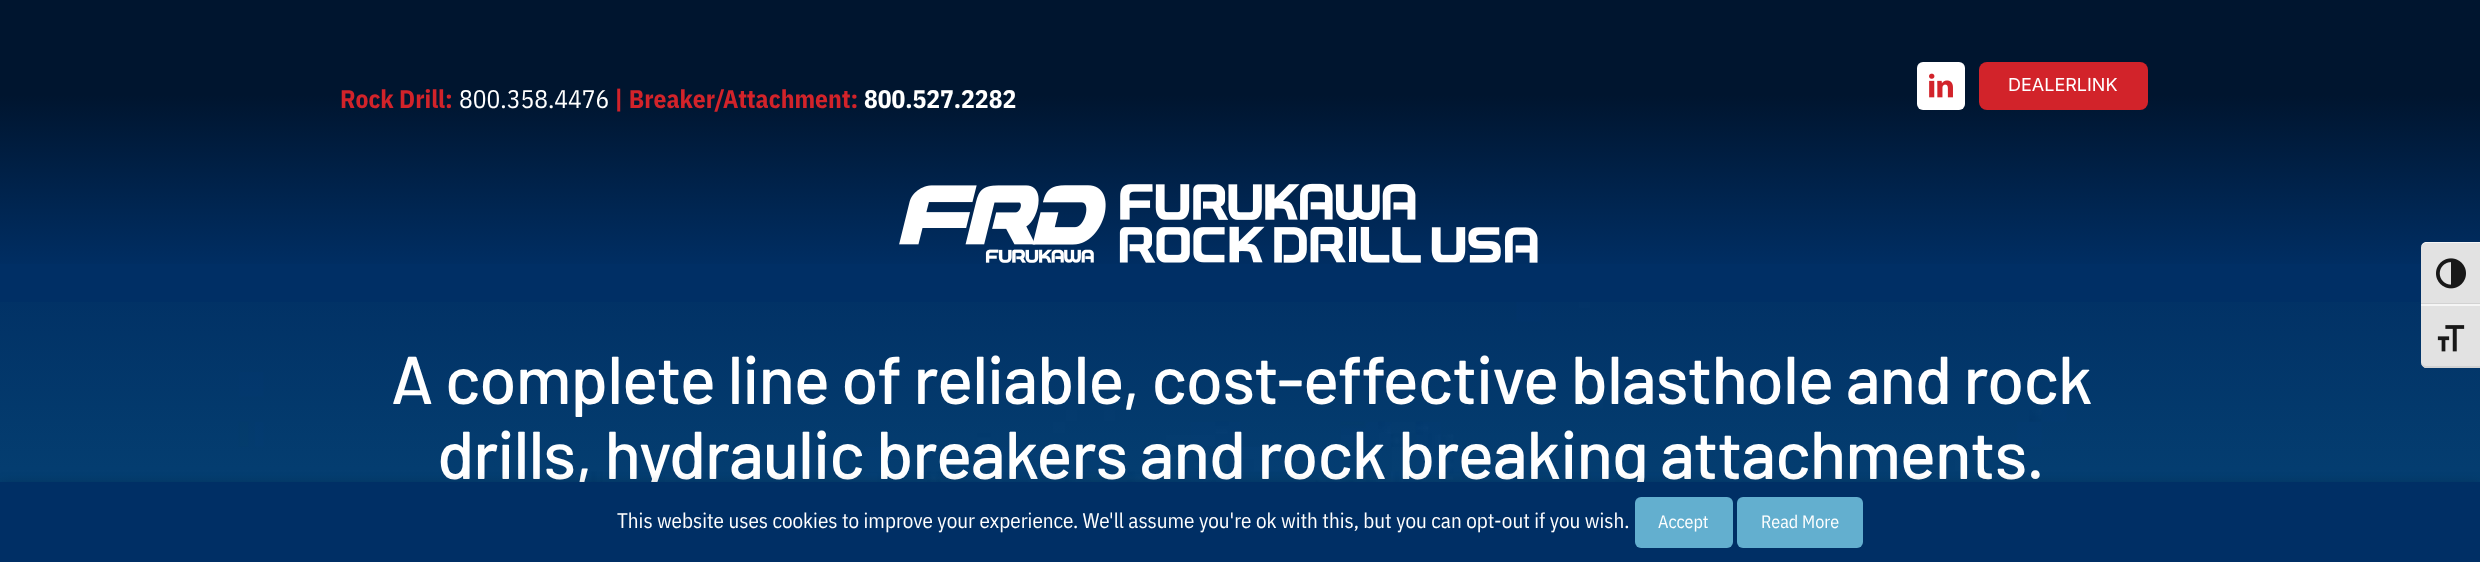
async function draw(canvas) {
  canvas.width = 2480
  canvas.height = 562
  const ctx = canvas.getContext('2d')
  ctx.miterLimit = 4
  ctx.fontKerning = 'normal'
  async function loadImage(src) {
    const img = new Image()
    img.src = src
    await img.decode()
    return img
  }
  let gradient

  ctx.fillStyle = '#002f65'
  ctx.fillRect(0, 0, 2480, 562)
  gradient = ctx.createLinearGradient(1241, 0, 1241, 272)
  gradient.addColorStop(0.35, '#00152f')
  gradient.addColorStop(1, '#002f65')
  ctx.fillStyle = gradient
  ctx.fillRect(0, 0, 2480, 264)
  ctx.fillStyle = '#fff'
  ctx.beginPath()
  ctx.roundRect(1917, 62, 48, 48, 6)
  ctx.fill()
  ctx.drawImage(await loadImage('image0.png'), 1929, 73, 24, 25)
  ctx.fillStyle = '#d2232a'
  ctx.beginPath()
  ctx.roundRect(1979, 62, 169, 48, 8)
  ctx.fill()
  ctx.font = '18px Inter'
  ctx.fillStyle = '#fff'
  ctx.fillText('DEALERLINK', 2008, 91)
  ctx.font = 'bold 25.5px IBM Plex Sans Condensed'
  ctx.fillStyle = '#d2232a'
  ctx.fillText('Rock Drill:', 340, 108)
  ctx.font = '25.5px IBM Plex Sans Condensed'
  ctx.fillStyle = '#fff'
  ctx.fillText('800.358.4476', 459, 108)
  ctx.font = 'bold 25.5px IBM Plex Sans Condensed'
  ctx.fillStyle = '#d2232a'
  ctx.fillText('| Breaker/Attachment:', 614, 108)
  ctx.fillStyle = '#fff'
  ctx.fillText('800.527.2282', 864, 108)
  ctx.drawImage(await loadImage('image1.png'), 899, 183, 639, 80)
  ctx.drawImage(await loadImage('image2.png'), 0, 302, 2480, 180)
  ctx.letterSpacing = '-1px'
  ctx.font = '500 67.5px Barlow'
  ctx.fillText('A complete line of reliable, cost-effective blasthole and rock', 391, 404)
  ctx.fillText('drills, hydraulic breakers and rock breaking attachments.', 437, 479)
  ctx.fillStyle = '#e2e2e2'
  ctx.beginPath()
  ctx.moveTo(2427, 242)
  ctx.lineTo(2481, 242)
  ctx.lineTo(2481, 305)
  ctx.lineTo(2421, 305)
  ctx.lineTo(2421, 248)
  ctx.bezierCurveTo(2421, 244.5, 2423.5, 242, 2427, 242)
  ctx.closePath()
  ctx.fill()
  ctx.fillStyle = '#f5f5f5'
  ctx.beginPath()
  ctx.moveTo(2427, 242)
  ctx.lineTo(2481, 242)
  ctx.lineTo(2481, 243)
  ctx.lineTo(2427, 243)
  ctx.bezierCurveTo(2424, 243, 2421, 245, 2421, 248)
  ctx.bezierCurveTo(2421, 244, 2424, 242, 2427, 242)
  ctx.closePath()
  ctx.fill()
  ctx.fillStyle = '#d2d2d2'
  ctx.fillRect(2421, 303, 59, 1)
  ctx.drawImage(await loadImage('image3.png'), 2436, 258, 30, 31)
  ctx.fillStyle = '#e2e2e2'
  ctx.beginPath()
  ctx.moveTo(2421, 305)
  ctx.lineTo(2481, 305)
  ctx.lineTo(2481, 368)
  ctx.lineTo(2427, 368)
  ctx.bezierCurveTo(2423.5, 368, 2421, 365.5, 2421, 362)
  ctx.closePath()
  ctx.fill()
  ctx.fillStyle = '#f5f5f5'
  ctx.fillRect(2421, 304, 59, 2)
  ctx.fillStyle = '#d2d2d2'
  ctx.beginPath()
  ctx.moveTo(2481, 368)
  ctx.lineTo(2425, 368)
  ctx.bezierCurveTo(2423, 367, 2421, 364, 2421, 362)
  ctx.bezierCurveTo(2421, 364, 2424, 366, 2427, 366)
  ctx.lineTo(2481, 366)
  ctx.closePath()
  ctx.fill()
  ctx.drawImage(await loadImage('image4.png'), 2437, 325, 28, 27)
  ctx.fillStyle = '#00000080'
  ctx.filter = 'blur(7.5px)'
  ctx.beginPath()
  ctx.rect(0, 489, 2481, 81)
  ctx.fill()
  ctx.filter = 'none'
  ctx.fillStyle = '#002f65'
  ctx.fillRect(0, 482, 2480, 80)
  ctx.letterSpacing = '0px'
  ctx.font = '21px IBM Plex Sans Condensed'
  ctx.fillStyle = '#fff'
  ctx.fillText('This website uses cookies to improve your experience. We\'ll assume you\'re ok with this, but you can opt-out if you wish.', 617, 528)
  ctx.fillStyle = '#63afcf'
  ctx.beginPath()
  ctx.roundRect(1635, 497, 98, 51, 6)
  ctx.fill()
  ctx.font = '18px IBM Plex Sans Condensed'
  ctx.fillStyle = '#fff'
  ctx.fillText('Accept', 1658, 528)
  ctx.fillStyle = '#63afcf'
  ctx.beginPath()
  ctx.roundRect(1737, 497, 126, 51, 6)
  ctx.fill()
  ctx.fillStyle = '#fff'
  ctx.fillText('Read More', 1761, 528)
}

draw(document.querySelector('canvas'))
